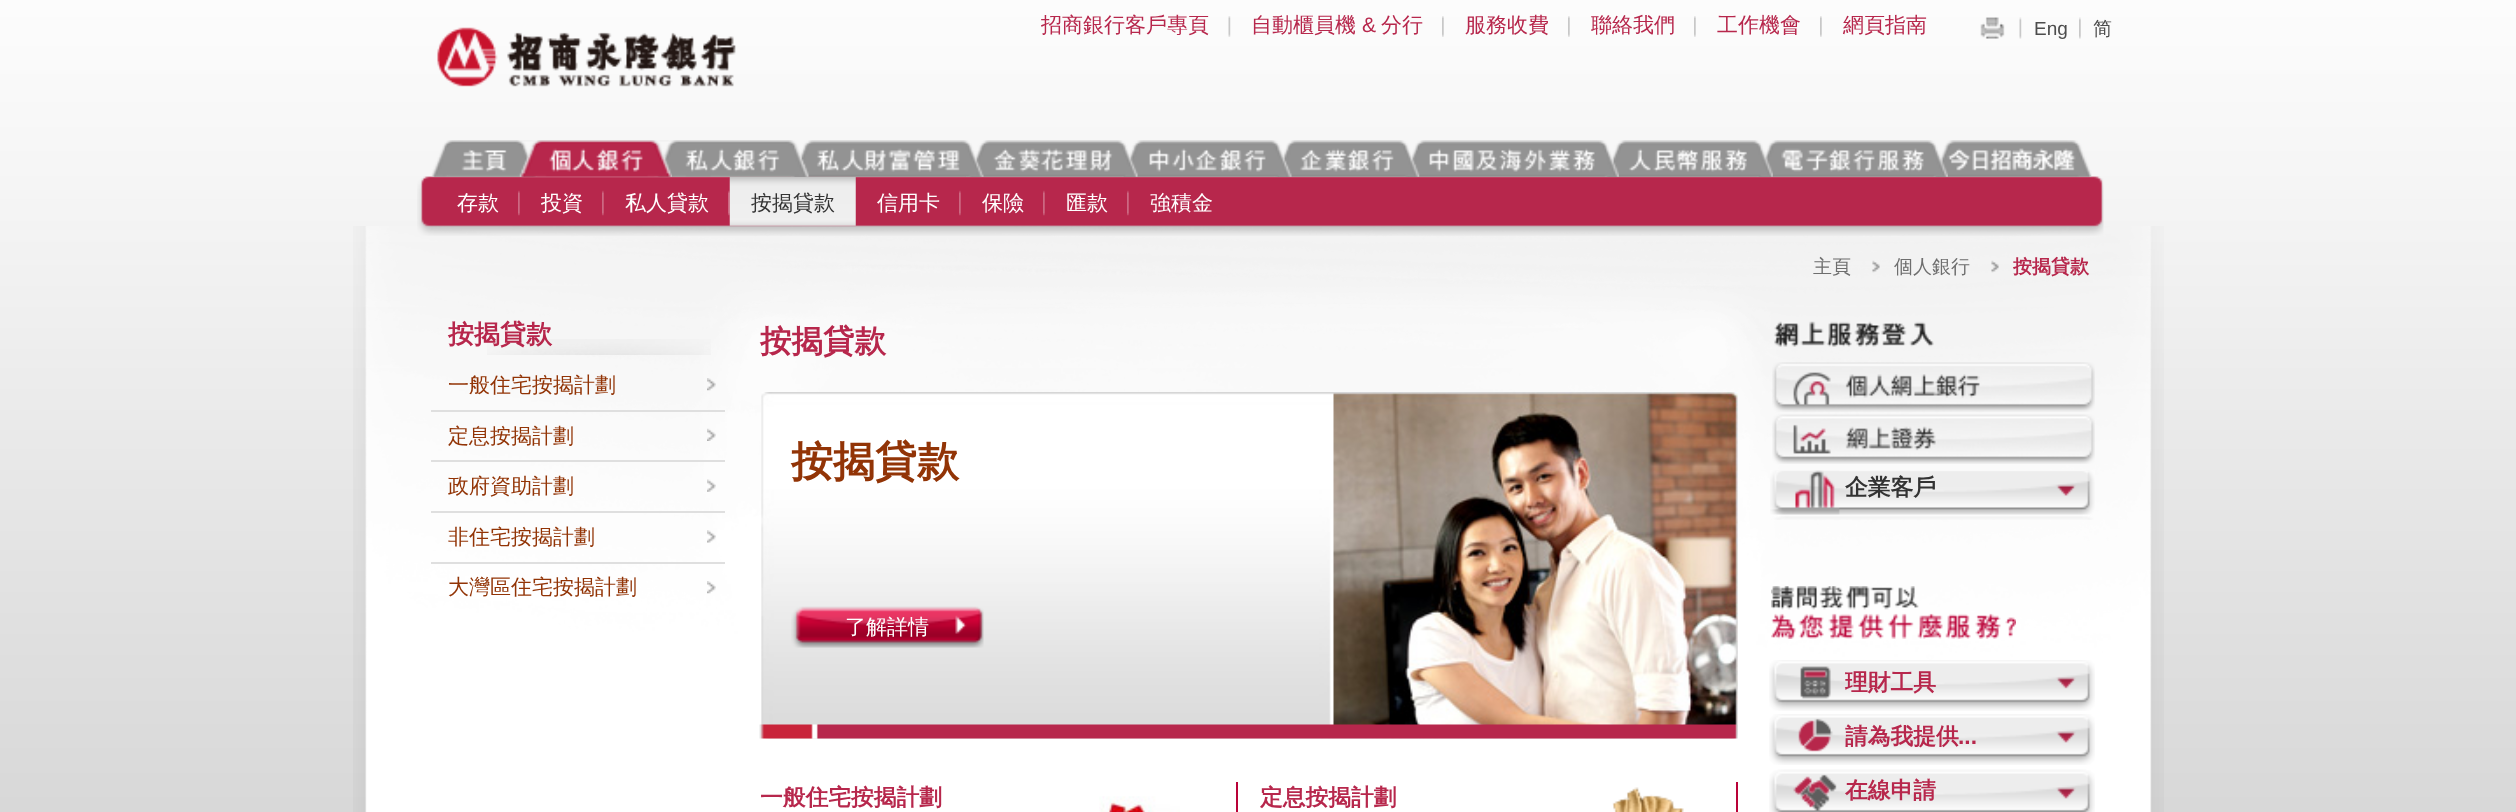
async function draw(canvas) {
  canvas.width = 2516
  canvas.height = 812
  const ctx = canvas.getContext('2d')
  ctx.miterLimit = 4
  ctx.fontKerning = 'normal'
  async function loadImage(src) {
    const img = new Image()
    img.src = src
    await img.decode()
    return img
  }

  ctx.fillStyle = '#fff'
  ctx.fillRect(0, 0, 2516, 812)
  ctx.drawImage(await loadImage('image0.png'), 0, 0, 2516, 812)
  ctx.drawImage(await loadImage('image1.png'), 437, 27, 299, 60)
  ctx.drawImage(await loadImage('image2.png'), 1228, 16, 3, 21)
  ctx.font = '500 21px WenQuanYi Zen Hei'
  ctx.fillStyle = '#b7274c'
  ctx.fillText('招商銀行客戶專頁', 1041, 32)
  ctx.drawImage(await loadImage('image3.png'), 1442, 16, 2, 21)
  ctx.fillText('自動櫃員機', 1251, 32)
  ctx.font = '21px Liberation Sans'
  ctx.fillText('&', 1362, 32)
  ctx.font = '500 21px WenQuanYi Zen Hei'
  ctx.fillText('分行', 1381, 32)
  ctx.drawImage(await loadImage('image3.png'), 1568, 16, 2, 21)
  ctx.fillText('服務收費', 1465, 32)
  ctx.drawImage(await loadImage('image3.png'), 1694, 16, 2, 21)
  ctx.fillText('聯絡我們', 1591, 32)
  ctx.drawImage(await loadImage('image3.png'), 1820, 16, 2, 21)
  ctx.fillText('工作機會', 1717, 32)
  ctx.fillText('網頁指南', 1843, 32)
  ctx.drawImage(await loadImage('image4.png'), 2019, 17, 3, 22)
  ctx.drawImage(await loadImage('image5.png'), 1980, 17, 25, 22)
  ctx.drawImage(await loadImage('image6.png'), 2079, 17, 2, 22)
  ctx.font = '19px Liberation Sans'
  ctx.fillStyle = '#4d4d4d'
  ctx.fillText('Eng', 2034, 35)
  ctx.font = '500 19px WenQuanYi Zen Hei'
  ctx.fillText('简', 2093, 35)
  ctx.drawImage(await loadImage('image21.png'), 353, 226, 1811, 586)
  ctx.drawImage(await loadImage('image18.png'), 417, 176, 1687, 60)
  ctx.drawImage(await loadImage('image7.png'), 430, 140, 108, 37)
  ctx.drawImage(await loadImage('image17.png'), 1933, 140, 159, 37)
  ctx.drawImage(await loadImage('image16.png'), 1756, 140, 192, 37)
  ctx.drawImage(await loadImage('image15.png'), 1604, 140, 169, 37)
  ctx.drawImage(await loadImage('image14.png'), 1403, 140, 216, 37)
  ctx.drawImage(await loadImage('image13.png'), 1274, 140, 146, 37)
  ctx.drawImage(await loadImage('image12.png'), 1121, 140, 171, 37)
  ctx.drawImage(await loadImage('image11.png'), 966, 140, 172, 37)
  ctx.drawImage(await loadImage('image19.png'), 728, 190, 2, 26)
  ctx.drawImage(await loadImage('image20.png'), 729, 176, 127, 50)
  ctx.drawImage(await loadImage('image10.png'), 791, 140, 193, 37)
  ctx.drawImage(await loadImage('image9.png'), 654, 140, 155, 37)
  ctx.drawImage(await loadImage('image8.png'), 519, 140, 153, 37)
  ctx.drawImage(await loadImage('image19.png'), 518, 190, 2, 26)
  ctx.font = '500 21px WenQuanYi Zen Hei'
  ctx.fillStyle = '#fff'
  ctx.fillText('存款', 457, 210)
  ctx.drawImage(await loadImage('image19.png'), 602, 190, 2, 26)
  ctx.fillText('投資', 541, 210)
  ctx.fillText('私人貸款', 625, 210)
  ctx.fillStyle = '#333'
  ctx.fillText('按揭貸款', 751, 210)
  ctx.drawImage(await loadImage('image19.png'), 959, 190, 2, 26)
  ctx.fillStyle = '#fff'
  ctx.fillText('信用卡', 877, 210)
  ctx.drawImage(await loadImage('image19.png'), 1043, 190, 2, 26)
  ctx.fillText('保險', 982, 210)
  ctx.drawImage(await loadImage('image19.png'), 1127, 190, 2, 26)
  ctx.fillText('匯款', 1066, 210)
  ctx.fillText('強積金', 1150, 210)
  ctx.font = '500 19px WenQuanYi Zen Hei'
  ctx.fillStyle = '#6e6e6e'
  ctx.fillText('主頁', 1813, 273)
  ctx.drawImage(await loadImage('image22.png'), 1872, 260, 8, 13)
  ctx.fillText('個人銀行', 1894, 273)
  ctx.drawImage(await loadImage('image23.png'), 1991, 260, 8, 13)
  ctx.font = 'bold 19px WenQuanYi Zen Hei'
  ctx.fillStyle = '#b7274c'
  ctx.fillText('按揭貸款', 2013, 273)
  ctx.drawImage(await loadImage('image24.png'), 487, 339, 224, 16)
  ctx.font = 'bold 26px WenQuanYi Zen Hei'
  ctx.fillText('按揭貸款', 448, 343)
  ctx.fillStyle = '#dfdfdf'
  ctx.fillRect(431, 410, 294, 2)
  ctx.drawImage(await loadImage('image25.png'), 707, 378, 9, 13)
  ctx.font = '500 21px WenQuanYi Zen Hei'
  ctx.fillStyle = '#923406'
  ctx.fillText('一般住宅按揭計劃', 448, 392)
  ctx.fillStyle = '#dfdfdf'
  ctx.fillRect(431, 460, 294, 2)
  ctx.drawImage(await loadImage('image26.png'), 707, 428, 9, 13)
  ctx.fillStyle = '#923406'
  ctx.fillText('定息按揭計劃', 448, 443)
  ctx.fillStyle = '#dfdfdf'
  ctx.fillRect(431, 511, 294, 2)
  ctx.drawImage(await loadImage('image27.png'), 707, 479, 9, 13)
  ctx.fillStyle = '#923406'
  ctx.fillText('政府資助計劃', 448, 493)
  ctx.fillStyle = '#dfdfdf'
  ctx.fillRect(431, 562, 294, 2)
  ctx.drawImage(await loadImage('image28.png'), 707, 530, 9, 13)
  ctx.fillStyle = '#923406'
  ctx.fillText('非住宅按揭計劃', 448, 544)
  ctx.drawImage(await loadImage('image29.png'), 707, 581, 9, 13)
  ctx.fillText('大灣區住宅按揭計劃', 448, 594)
  ctx.font = 'bold 31.5px WenQuanYi Zen Hei'
  ctx.fillStyle = '#b7274c'
  ctx.fillText('按揭貸款', 760, 352)
  ctx.drawImage(await loadImage('image30.png'), 761, 392, 977, 347)
  ctx.font = 'bold 42px WenQuanYi Zen Hei'
  ctx.fillStyle = '#923406'
  ctx.fillText('按揭貸款', 791, 476)
  ctx.drawImage(await loadImage('image31.png'), 791, 606, 193, 42)
  ctx.font = '500 21px WenQuanYi Zen Hei'
  ctx.fillStyle = '#fff'
  ctx.fillText('了解詳情', 845, 634)
  ctx.drawImage(await loadImage('image32.png'), 759, 724, 979, 15)
  ctx.fillStyle = '#b90238'
  ctx.fillRect(1236, 782, 2, 30)
  ctx.font = 'bold 22.75px WenQuanYi Zen Hei'
  ctx.fillStyle = '#b7274c'
  ctx.fillText('一般住宅按揭計劃', 760, 805)
  ctx.drawImage(await loadImage('image33.png'), 1099, 796, 81, 16)
  ctx.fillStyle = '#b90238'
  ctx.fillRect(1736, 782, 2, 30)
  ctx.fillStyle = '#b7274c'
  ctx.fillText('定息按揭計劃', 1260, 805)
  ctx.drawImage(await loadImage('image34.png'), 1612, 787, 72, 25)
  ctx.drawImage(await loadImage('image35.png'), 1774, 321, 160, 26)
  ctx.drawImage(await loadImage('image36.png'), 1772, 362, 323, 50)
  ctx.drawImage(await loadImage('image37.png'), 1772, 414, 323, 50)
  ctx.drawImage(await loadImage('image38.png'), 1770, 470, 325, 50)
  ctx.fillStyle = '#333'
  ctx.fillText('企業客戶', 1845, 495)
  ctx.drawImage(await loadImage('image39.png'), 1771, 586, 245, 53)
  ctx.drawImage(await loadImage('image40.png'), 1769, 660, 326, 51)
  ctx.fillStyle = '#b7274c'
  ctx.fillText('理財工具', 1845, 690)
  ctx.drawImage(await loadImage('image41.png'), 1769, 714, 326, 51)
  ctx.fillText('請為我提供', 1845, 744)
  ctx.font = 'bold 22.75px Liberation Sans'
  ctx.fillText('...', 1958, 744)
  ctx.drawImage(await loadImage('image42.png'), 1769, 769, 326, 43)
  ctx.font = 'bold 22.75px WenQuanYi Zen Hei'
  ctx.fillText('在線申請', 1845, 798)
}

draw(document.querySelector('canvas'))
